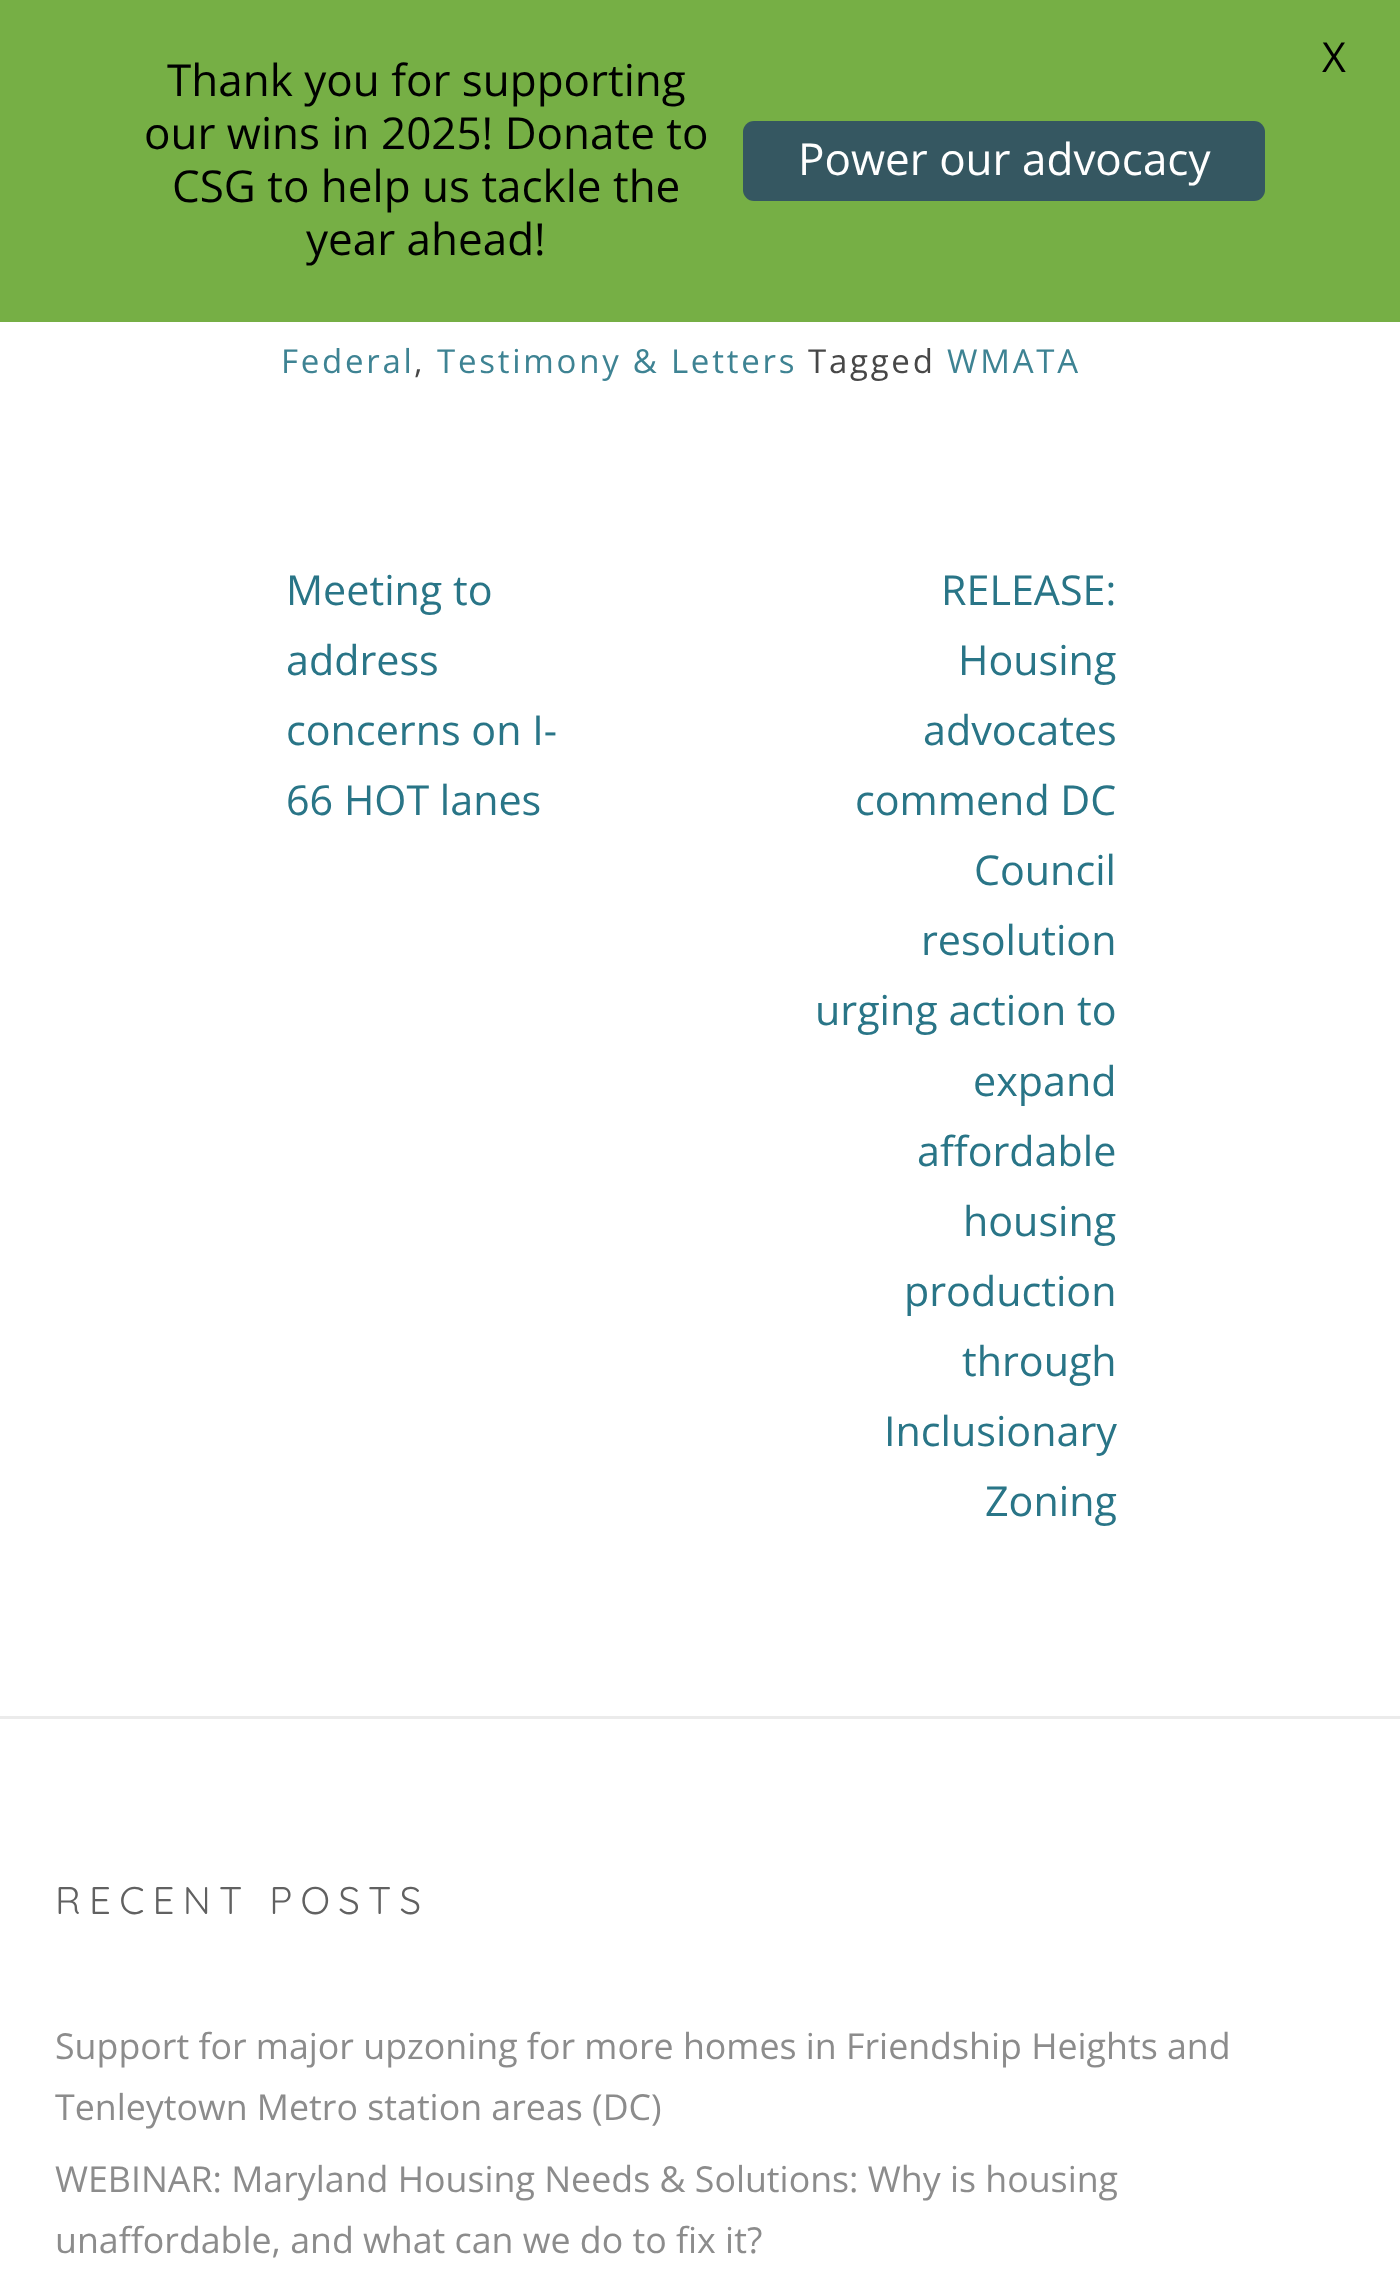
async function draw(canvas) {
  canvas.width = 1400
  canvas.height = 2274
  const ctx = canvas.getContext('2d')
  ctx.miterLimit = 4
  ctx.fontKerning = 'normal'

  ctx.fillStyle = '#fff'
  ctx.fillRect(0, 0, 1400, 2274)
  ctx.fillStyle = '#76af45'
  ctx.fillRect(0, 0, 1400, 322)
  ctx.font = '41.25px Open Sans'
  ctx.fillStyle = '#000'
  ctx.fillText('X', 1322, 72)
  ctx.font = '44px Open Sans'
  ctx.fillText('Thank you for supporting', 167, 96)
  ctx.fillText('our wins in 2025! Donate to', 144, 149)
  ctx.fillText('CSG to help us tackle the', 172, 202)
  ctx.fillText('year ahead!', 306, 255)
  ctx.fillStyle = '#355761'
  ctx.beginPath()
  ctx.roundRect(743, 121, 522, 80, 11)
  ctx.fill()
  ctx.fillStyle = '#fff'
  ctx.fillText('Power our advocacy', 798, 175)
  ctx.letterSpacing = '2.75px'
  ctx.font = '33px Open Sans'
  ctx.fillStyle = '#3e8393'
  ctx.fillText('Federal', 281, 373)
  ctx.fillStyle = '#474747'
  ctx.fillText(',', 414, 373)
  ctx.fillStyle = '#3e8393'
  ctx.fillText('Testimony & Letters', 437, 373)
  ctx.fillStyle = '#474747'
  ctx.fillText('Tagged', 808, 373)
  ctx.fillStyle = '#3e8393'
  ctx.fillText('WMATA', 947, 373)
  ctx.letterSpacing = '0px'
  ctx.font = '41.25px Open Sans'
  ctx.fillStyle = '#297587'
  ctx.fillText('Meeting to', 286, 605)
  ctx.fillText('address', 286, 675)
  ctx.fillText('concerns on I-', 286, 745)
  ctx.fillText('66 HOT lanes', 286, 815)
  ctx.fillText('RELEASE:', 941, 605)
  ctx.fillText('Housing', 958, 675)
  ctx.fillText('advocates', 923, 745)
  ctx.fillText('commend DC', 855, 815)
  ctx.fillText('Council', 974, 885)
  ctx.fillText('resolution', 921, 955)
  ctx.fillText('urging action to', 815, 1025)
  ctx.fillText('expand', 973, 1096)
  ctx.fillText('affordable', 917, 1166)
  ctx.fillText('housing', 963, 1236)
  ctx.fillText('production', 904, 1306)
  ctx.fillText('through', 962, 1376)
  ctx.fillText('Inclusionary', 884, 1446)
  ctx.fillText('Zoning', 985, 1516)
  ctx.fillStyle = '#ebebeb'
  ctx.fillRect(0, 1716, 1400, 3)
  ctx.letterSpacing = '8.25px'
  ctx.font = '300 38.5px Quicksand'
  ctx.fillStyle = '#616161'
  ctx.fillText('RECENT POSTS', 55, 1914)
  ctx.letterSpacing = '0px'
  ctx.font = '35.75px Open Sans'
  ctx.fillStyle = '#8c8c8c'
  ctx.fillText('Support for major upzoning for more homes in Friendship Heights and', 55, 2059)
  ctx.fillText('Tenleytown Metro station areas (DC)', 55, 2120)
  ctx.fillText('WEBINAR: Maryland Housing Needs & Solutions: Why is housing', 55, 2192)
  ctx.fillText('unaffordable, and what can we do to fix it?', 55, 2253)
}

draw(document.querySelector('canvas'))
